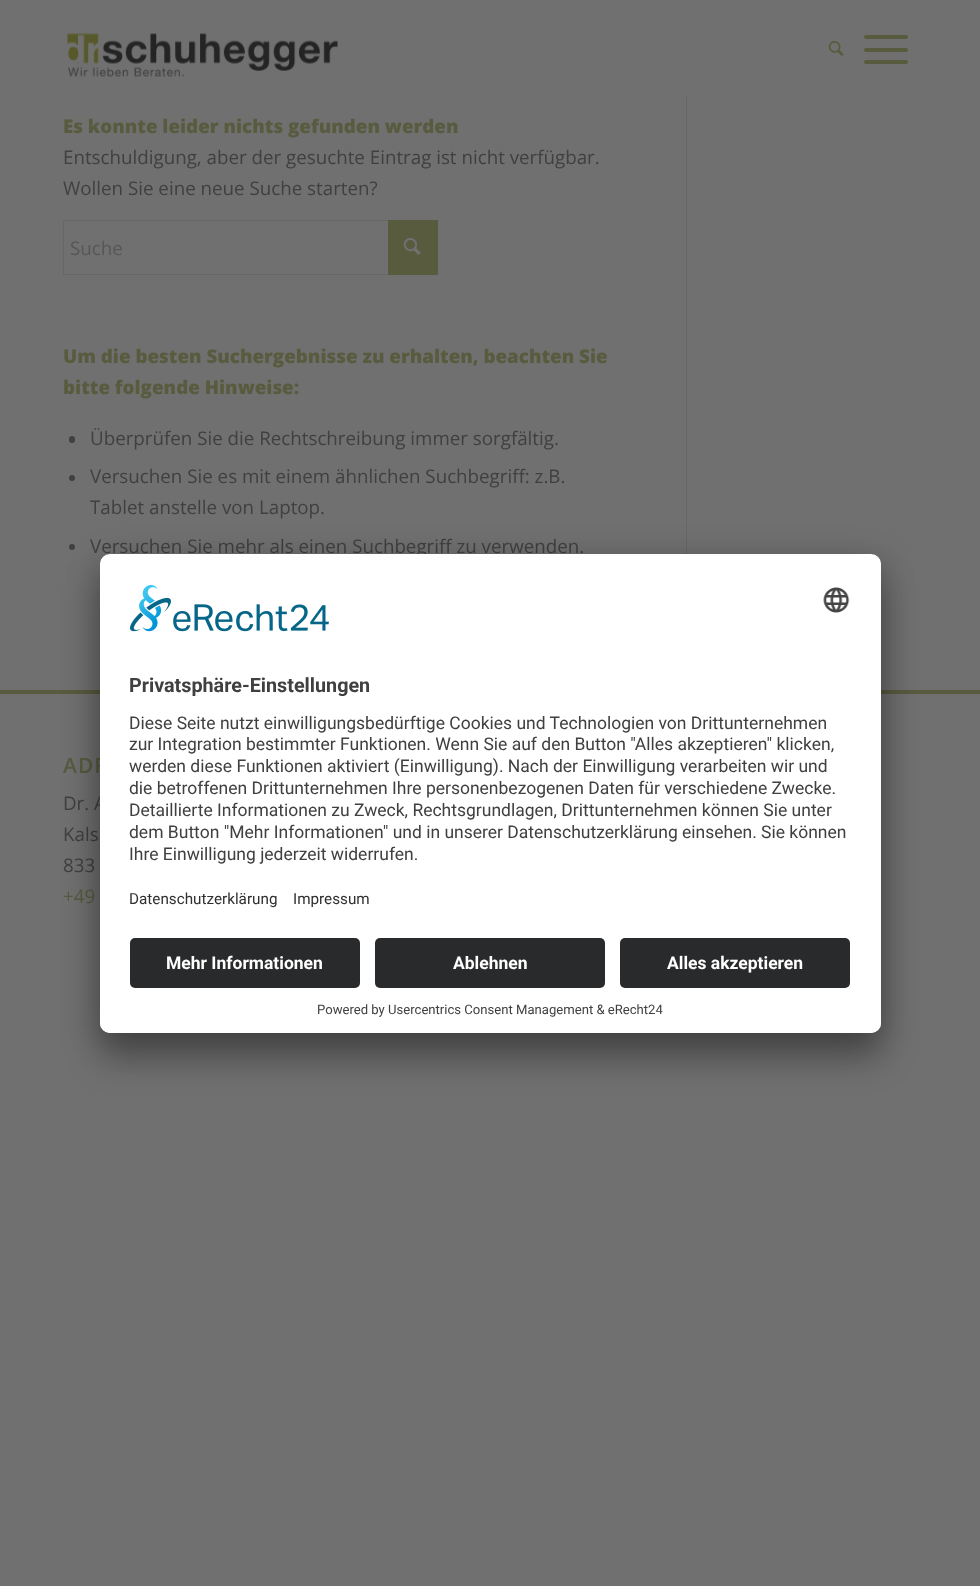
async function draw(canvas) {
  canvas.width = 980
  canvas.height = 1586
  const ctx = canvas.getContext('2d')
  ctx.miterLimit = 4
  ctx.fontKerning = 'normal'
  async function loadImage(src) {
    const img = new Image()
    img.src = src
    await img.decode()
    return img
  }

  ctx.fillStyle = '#707070'
  ctx.fillRect(0, 0, 980, 1586)
  ctx.drawImage(await loadImage('image0.png'), 67, 33, 271, 44)
  ctx.drawImage(await loadImage('image1.png'), 828, 41, 16, 15)
  ctx.fillStyle = '#595b3f'
  ctx.beginPath()
  ctx.roundRect(864, 48, 44, 4, 2)
  ctx.fill()
  ctx.beginPath()
  ctx.roundRect(864, 35, 44, 4, 2)
  ctx.fill()
  ctx.beginPath()
  ctx.roundRect(864, 60, 44, 4, 2)
  ctx.fill()
  ctx.fillStyle = '#676767'
  ctx.fillRect(686, 95, 1, 459)
  ctx.font = '800 18.75px Open Sans'
  ctx.fillStyle = '#595b3f'
  ctx.fillText('Es konnte leider nichts gefunden werden', 63, 133)
  ctx.font = '18.75px Open Sans'
  ctx.fillStyle = '#404040'
  ctx.fillText('Entschuldigung, aber der gesuchte Eintrag ist nicht verfügbar.', 63, 164)
  ctx.fillText('Wollen Sie eine neue Suche starten?', 63, 195)
  ctx.strokeStyle = '#676767'
  ctx.strokeRect(63.5, 220.5, 374, 54)
  ctx.fillStyle = '#575757'
  ctx.fillText('Suche', 70, 255)
  ctx.fillStyle = '#595b3f'
  ctx.fillRect(388, 220, 50, 55)
  ctx.drawImage(await loadImage('image2.png'), 403, 237, 18, 18)
  ctx.font = '800 18.75px Open Sans'
  ctx.fillText('Um die besten Suchergebnisse zu erhalten, beachten Sie', 63, 363)
  ctx.fillText('bitte folgende Hinweise:', 63, 394)
  ctx.fillStyle = '#404040'
  ctx.beginPath()
  ctx.roundRect(69, 436, 6, 7, 3)
  ctx.fill()
  ctx.font = '18.75px Open Sans'
  ctx.fillText('Überprüfen Sie die Rechtschreibung immer sorgfältig.', 90, 445)
  ctx.beginPath()
  ctx.arc(72, 478, 3, 0, 2 * Math.PI)
  ctx.fill()
  ctx.fillText('Versuchen Sie es mit einem ähnlichen Suchbegriff: z.B.', 90, 483)
  ctx.fillText('Tablet anstelle von Laptop.', 90, 514)
  ctx.beginPath()
  ctx.arc(72, 547, 3, 0, 2 * Math.PI)
  ctx.fill()
  ctx.fillText('Versuchen Sie mehr als einen Suchbegriff zu verwenden.', 90, 553)
  ctx.fillStyle = '#595b3f'
  ctx.fillRect(0, 690, 980, 4)
  ctx.letterSpacing = '1px'
  ctx.font = '600 21px Open Sans'
  ctx.fillText('ADR', 63, 773)
  ctx.letterSpacing = '0px'
  ctx.font = '18.75px Open Sans'
  ctx.fillStyle = '#404040'
  ctx.fillText('Dr. A', 63, 810)
  ctx.fillText('Kals', 63, 841)
  ctx.fillText('833', 63, 872)
  ctx.fillStyle = '#595b3f'
  ctx.fillText('+49', 63, 903)
  ctx.fillStyle = '#0000004d'
  ctx.filter = 'blur(17.5px)'
  ctx.beginPath()
  ctx.roundRect(100, 579, 781, 479, 10)
  ctx.fill()
  ctx.filter = 'none'
  ctx.fillStyle = '#00000038'
  ctx.filter = 'blur(16px)'
  ctx.beginPath()
  ctx.roundRect(100, 560, 781, 479, 10)
  ctx.fill()
  ctx.filter = 'none'
  ctx.fillStyle = '#fff'
  ctx.beginPath()
  ctx.roundRect(100, 554, 781, 479, 10)
  ctx.fill()
  ctx.save()
  ctx.beginPath()
  ctx.roundRect(100, 554, 781, 479, 10)
  ctx.clip()
  ctx.beginPath()
  ctx.roundRect(100, 554, 781, 374, [10, 10, 0, 0])
  ctx.clip()
  ctx.fillRect(100, 555, 781, 373)
  ctx.restore()
  ctx.drawImage(await loadImage('image3.png'), 130, 585, 199, 47)
  ctx.drawImage(await loadImage('image4.png'), 823, 587, 27, 26)
  ctx.font = 'bold 19.75px Roboto'
  ctx.fillStyle = '#404040'
  ctx.fillText('Privatsphäre-Einstellungen', 129, 692)
  ctx.font = '17.5px Roboto'
  ctx.fillText('Diese Seite nutzt einwilligungsbedürftige Cookies und Technologien von Drittunternehmen', 129, 729)
  ctx.fillText('zur Integration bestimmter Funktionen. Wenn Sie auf den Button "Alles akzeptieren" klicken,', 129, 750)
  ctx.fillText('werden diese Funktionen aktiviert (Einwilligung). Nach der Einwilligung verarbeiten wir und', 129, 772)
  ctx.fillText('die betroffenen Drittunternehmen Ihre personenbezogenen Daten für verschiedene Zwecke.', 129, 794)
  ctx.fillText('Detaillierte Informationen zu Zweck, Rechtsgrundlagen, Drittunternehmen können Sie unter', 129, 816)
  ctx.fillText('dem Button "Mehr Informationen" und in unserer Datenschutzerklärung einsehen. Sie können', 129, 838)
  ctx.fillText('Ihre Einwilligung jederzeit widerrufen.', 129, 860)
  ctx.font = '15.25px Roboto'
  ctx.fillStyle = '#303030'
  ctx.fillText('Datenschutzerklärung', 129, 904)
  ctx.fillText('Impressum', 293, 904)
  ctx.fillStyle = '#fff'
  ctx.beginPath()
  ctx.roundRect(100, 928, 781, 105, [0, 0, 10, 10])
  ctx.fill()
  ctx.fillStyle = '#292a2b'
  ctx.beginPath()
  ctx.roundRect(130, 938, 230, 50, 5)
  ctx.fill()
  ctx.font = 'bold 17.5px Roboto'
  ctx.fillStyle = '#fff'
  ctx.fillText('Mehr Informationen', 166, 969)
  ctx.fillStyle = '#292a2b'
  ctx.beginPath()
  ctx.roundRect(375, 938, 230, 50, 5)
  ctx.fill()
  ctx.fillStyle = '#fff'
  ctx.fillText('Ablehnen', 453, 969)
  ctx.fillStyle = '#292a2b'
  ctx.beginPath()
  ctx.roundRect(620, 938, 230, 50, 5)
  ctx.fill()
  ctx.fillStyle = '#fff'
  ctx.fillText('Alles akzeptieren', 667, 969)
  ctx.font = '13.1px Roboto'
  ctx.fillStyle = '#404040'
  ctx.fillText('Powered by Usercentrics Consent Management & eRecht24', 317, 1014)
}

draw(document.querySelector('canvas'))
